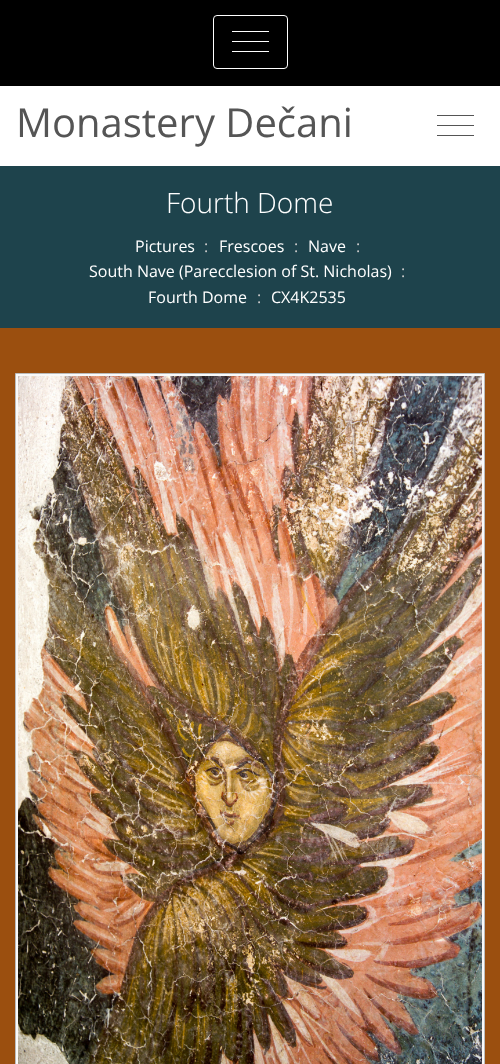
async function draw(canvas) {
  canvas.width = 500
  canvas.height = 1064
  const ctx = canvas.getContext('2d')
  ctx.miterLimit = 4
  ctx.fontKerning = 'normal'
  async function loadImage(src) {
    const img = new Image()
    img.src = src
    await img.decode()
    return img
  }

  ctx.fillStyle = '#fff'
  ctx.fillRect(0, 0, 500, 1064)
  ctx.fillStyle = '#000'
  ctx.fillRect(0, 0, 500, 86)
  ctx.beginPath()
  ctx.roundRect(213.5, 15.5, 74, 53, 3.5)
  ctx.strokeStyle = '#fff'
  ctx.stroke()
  ctx.fillStyle = '#fff'
  ctx.fillRect(232, 31, 37, 1)
  ctx.fillRect(232, 41, 37, 1)
  ctx.fillRect(232, 51, 37, 1)
  ctx.font = '40px Open Sans'
  ctx.fillStyle = '#555'
  ctx.fillText('Monastery Dečani', 16, 137)
  ctx.fillRect(437, 115, 37, 1)
  ctx.fillRect(437, 125, 37, 1)
  ctx.fillRect(437, 135, 37, 1)
  ctx.fillStyle = '#1e434c'
  ctx.fillRect(0, 166, 500, 162)
  ctx.font = '300 28px Open Sans'
  ctx.fillStyle = '#fff'
  ctx.fillText('Fourth Dome', 166, 213)
  ctx.font = '16px Open Sans'
  ctx.fillText('Pictures', 135, 252)
  ctx.fillStyle = '#ccc'
  ctx.fillText(':', 204, 252)
  ctx.fillStyle = '#fff'
  ctx.fillText('Frescoes', 219, 252)
  ctx.fillStyle = '#ccc'
  ctx.fillText(':', 294, 252)
  ctx.fillStyle = '#fff'
  ctx.fillText('Nave', 308, 252)
  ctx.fillStyle = '#ccc'
  ctx.fillText(':', 356, 252)
  ctx.fillStyle = '#fff'
  ctx.fillText('South Nave (Parecclesion of St. Nicholas)', 89, 277)
  ctx.fillStyle = '#ccc'
  ctx.fillText(':', 401, 277)
  ctx.fillStyle = '#fff'
  ctx.fillText('Fourth Dome', 148, 303)
  ctx.fillStyle = '#ccc'
  ctx.fillText(':', 257, 303)
  ctx.fillStyle = '#fff'
  ctx.fillText('CX4K2535', 271, 303)
  ctx.fillStyle = '#9b4f0f'
  ctx.fillRect(0, 328, 500, 736)
  ctx.fillStyle = '#fafafa'
  ctx.beginPath()
  ctx.rect(15.5, 373.5, 469, 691)
  ctx.fill()
  ctx.strokeStyle = '#bbb'
  ctx.stroke()
  ctx.drawImage(await loadImage('image0.png'), 18, 376, 464, 688)
}

draw(document.querySelector('canvas'))
